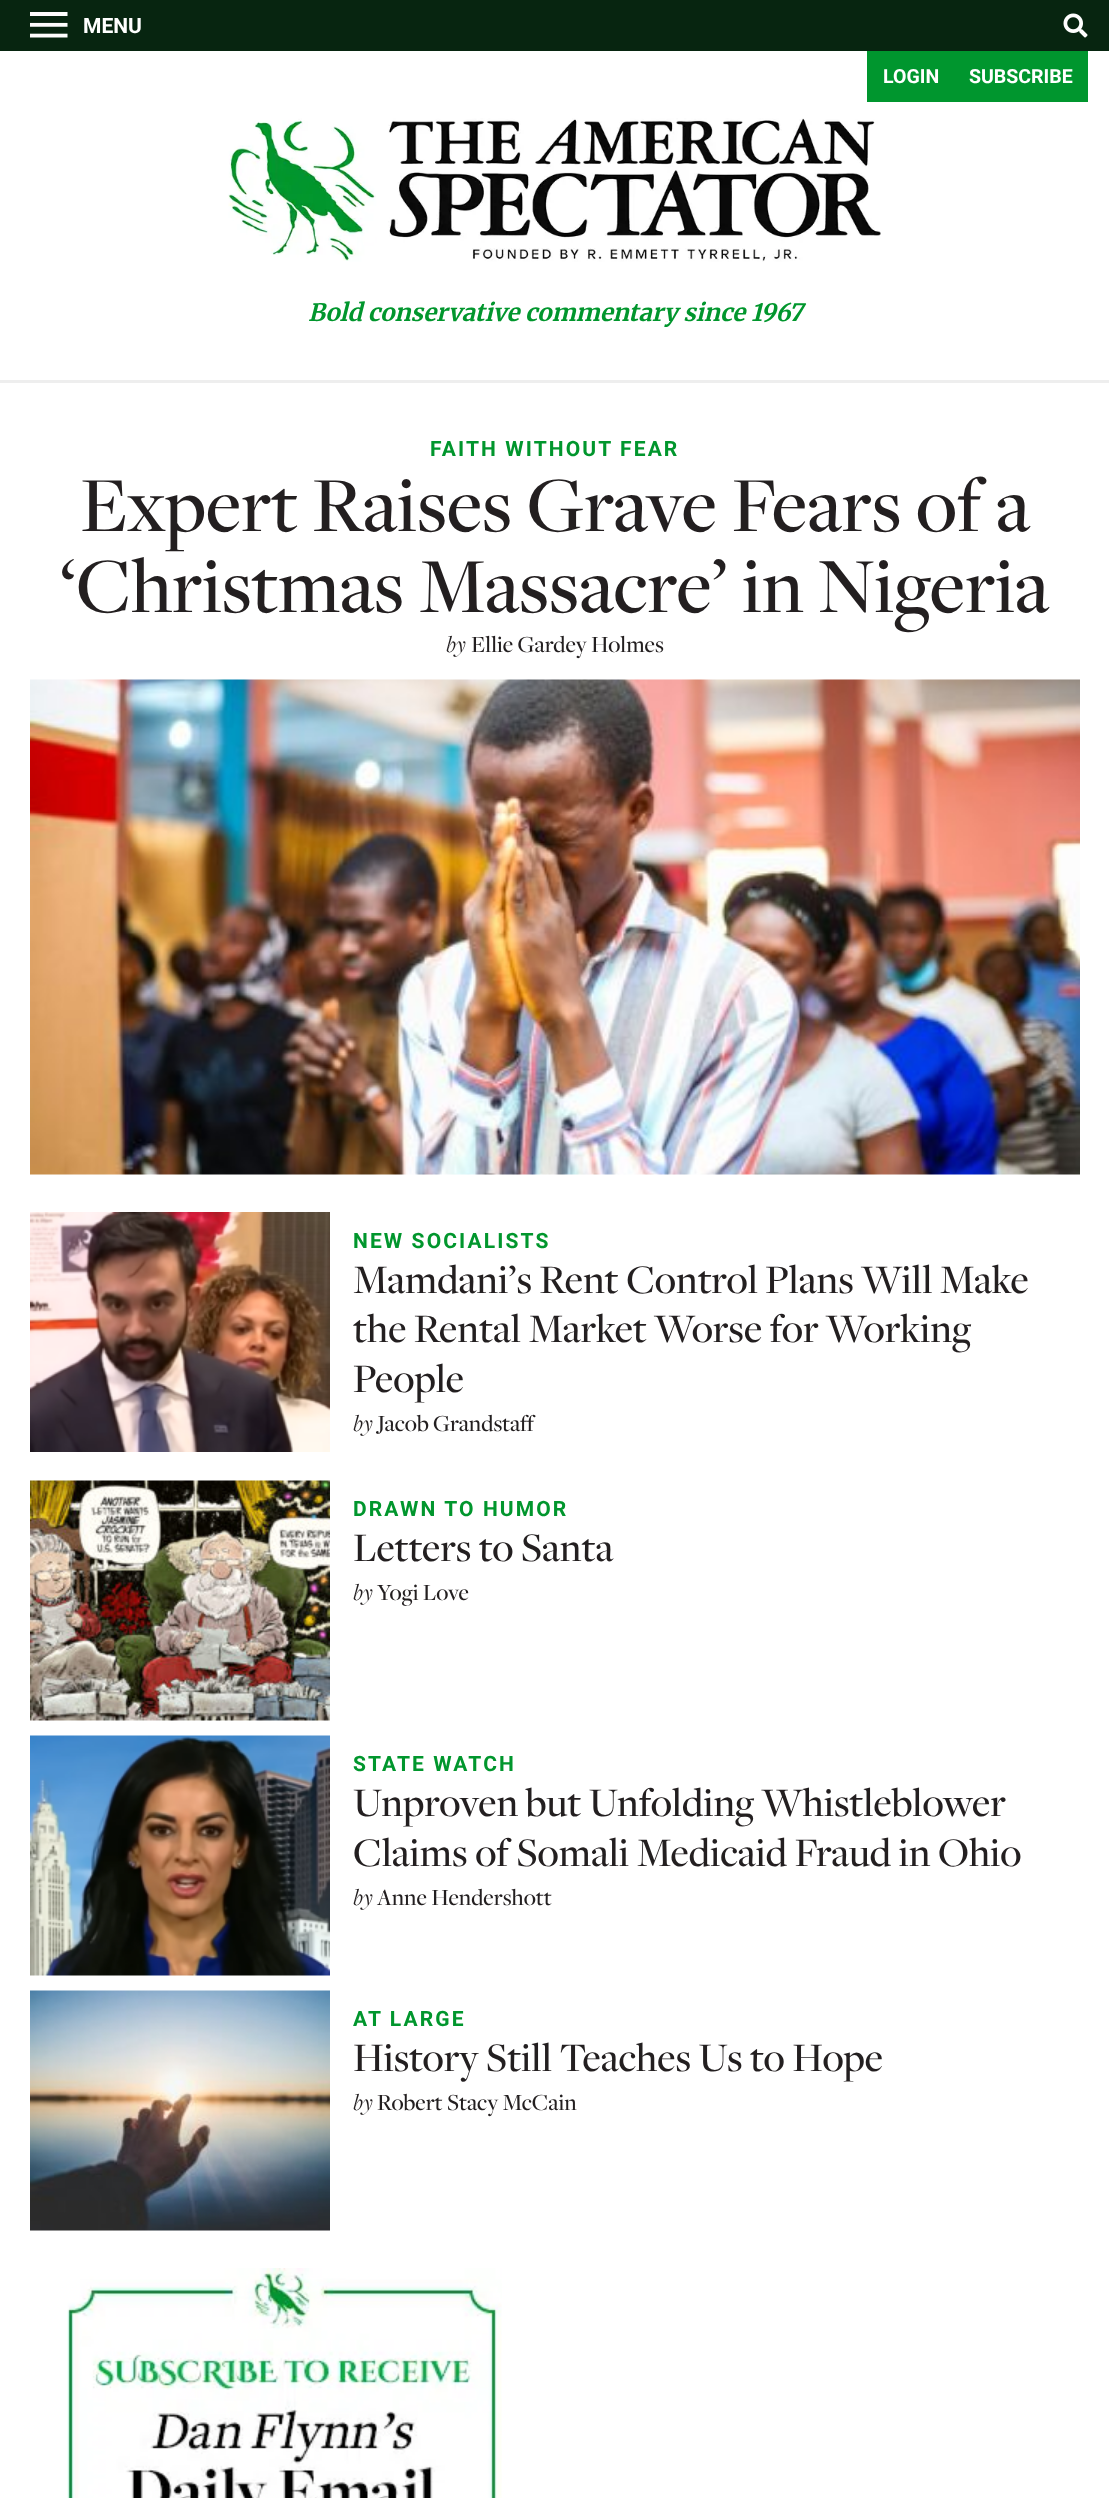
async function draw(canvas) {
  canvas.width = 1109
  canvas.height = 2498
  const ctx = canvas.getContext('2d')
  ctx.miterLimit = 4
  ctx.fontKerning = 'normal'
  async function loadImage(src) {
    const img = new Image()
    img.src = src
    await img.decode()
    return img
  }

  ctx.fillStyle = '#fff'
  ctx.fillRect(0, 0, 1109, 2498)
  ctx.fillStyle = '#072510'
  ctx.fillRect(0, 0, 1109, 51)
  ctx.drawImage(await loadImage('image0.png'), 30, 12, 38, 26)
  ctx.font = 'bold 21px Roboto'
  ctx.fillStyle = '#fff'
  ctx.fillText('MENU', 83, 33)
  ctx.drawImage(await loadImage('image1.png'), 1063, 13, 25, 25)
  ctx.fillStyle = '#00962e'
  ctx.fillRect(867, 51, 221, 51)
  ctx.font = 'bold 19.5px Roboto'
  ctx.fillStyle = '#fff'
  ctx.fillText('LOGIN', 883, 83)
  ctx.fillText('SUBSCRIBE', 969, 83)
  ctx.fillStyle = '#eee'
  ctx.fillRect(0, 380, 1109, 3)
  ctx.drawImage(await loadImage('image2.png'), 228, 118, 653, 144)
  ctx.font = 'italic bold 24px Merriweather'
  ctx.fillStyle = '#01962d'
  ctx.fillText('Bold conservative commentary since 1967', 308, 321)
  ctx.letterSpacing = '2.1px'
  ctx.font = 'bold 21px Roboto'
  ctx.fillText('FAITH WITHOUT FEAR', 430, 456)
  ctx.letterSpacing = '0px'
  ctx.font = '500 81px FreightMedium'
  ctx.fillStyle = '#231f20'
  ctx.fillText('Expert Raises Grave Fears of a', 80, 531)
  ctx.fillText('‘Christmas Massacre’ in Nigeria', 60, 612)
  ctx.font = 'italic 24px FreightMedium'
  ctx.fillText('by', 446, 652)
  ctx.font = '500 24px FreightMedium'
  ctx.fillText('Ellie Gardey Holmes', 471, 652)
  ctx.drawImage(await loadImage('image3.png'), 30, 679, 1050, 496)
  ctx.drawImage(await loadImage('image4.png'), 30, 1212, 300, 240)
  ctx.letterSpacing = '2.1px'
  ctx.font = 'bold 21px Roboto'
  ctx.fillStyle = '#01962d'
  ctx.fillText('NEW SOCIALISTS', 353, 1248)
  ctx.letterSpacing = '0px'
  ctx.font = '500 42px FreightMedium'
  ctx.fillStyle = '#231f20'
  ctx.fillText('Mamdani’s Rent Control Plans Will Make', 353, 1293)
  ctx.fillText('the Rental Market Worse for Working', 353, 1342)
  ctx.fillText('People', 353, 1392)
  ctx.font = 'italic 24px FreightMedium'
  ctx.fillText('by', 353, 1431)
  ctx.font = '500 24px FreightMedium'
  ctx.fillText('Jacob Grandstaff', 377, 1431)
  ctx.drawImage(await loadImage('image5.png'), 30, 1480, 300, 241)
  ctx.letterSpacing = '2.1px'
  ctx.font = 'bold 21px Roboto'
  ctx.fillStyle = '#01962d'
  ctx.fillText('DRAWN TO HUMOR', 353, 1516)
  ctx.letterSpacing = '0px'
  ctx.font = '500 42px FreightMedium'
  ctx.fillStyle = '#231f20'
  ctx.fillText('Letters to Santa', 353, 1561)
  ctx.font = 'italic 24px FreightMedium'
  ctx.fillText('by', 353, 1600)
  ctx.font = '500 24px FreightMedium'
  ctx.fillText('Yogi Love', 377, 1600)
  ctx.drawImage(await loadImage('image6.png'), 30, 1735, 300, 241)
  ctx.letterSpacing = '2.1px'
  ctx.font = 'bold 21px Roboto'
  ctx.fillStyle = '#01962d'
  ctx.fillText('STATE WATCH', 353, 1771)
  ctx.letterSpacing = '0px'
  ctx.font = '500 42px FreightMedium'
  ctx.fillStyle = '#231f20'
  ctx.fillText('Unproven but Unfolding Whistleblower', 353, 1816)
  ctx.fillText('Claims of Somali Medicaid Fraud in Ohio', 353, 1866)
  ctx.font = 'italic 24px FreightMedium'
  ctx.fillText('by', 353, 1905)
  ctx.font = '500 24px FreightMedium'
  ctx.fillText('Anne Hendershott', 377, 1905)
  ctx.drawImage(await loadImage('image7.png'), 30, 1990, 300, 241)
  ctx.letterSpacing = '2.1px'
  ctx.font = 'bold 21px Roboto'
  ctx.fillStyle = '#01962d'
  ctx.fillText('AT LARGE', 353, 2026)
  ctx.letterSpacing = '0px'
  ctx.font = '500 42px FreightMedium'
  ctx.fillStyle = '#231f20'
  ctx.fillText('History Still Teaches Us to Hope', 353, 2071)
  ctx.font = 'italic 24px FreightMedium'
  ctx.fillText('by', 353, 2110)
  ctx.font = '500 24px FreightMedium'
  ctx.fillText('Robert Stacy McCain', 377, 2110)
  ctx.drawImage(await loadImage('image8.png'), 67, 2268, 435, 230)
}

draw(document.querySelector('canvas'))
